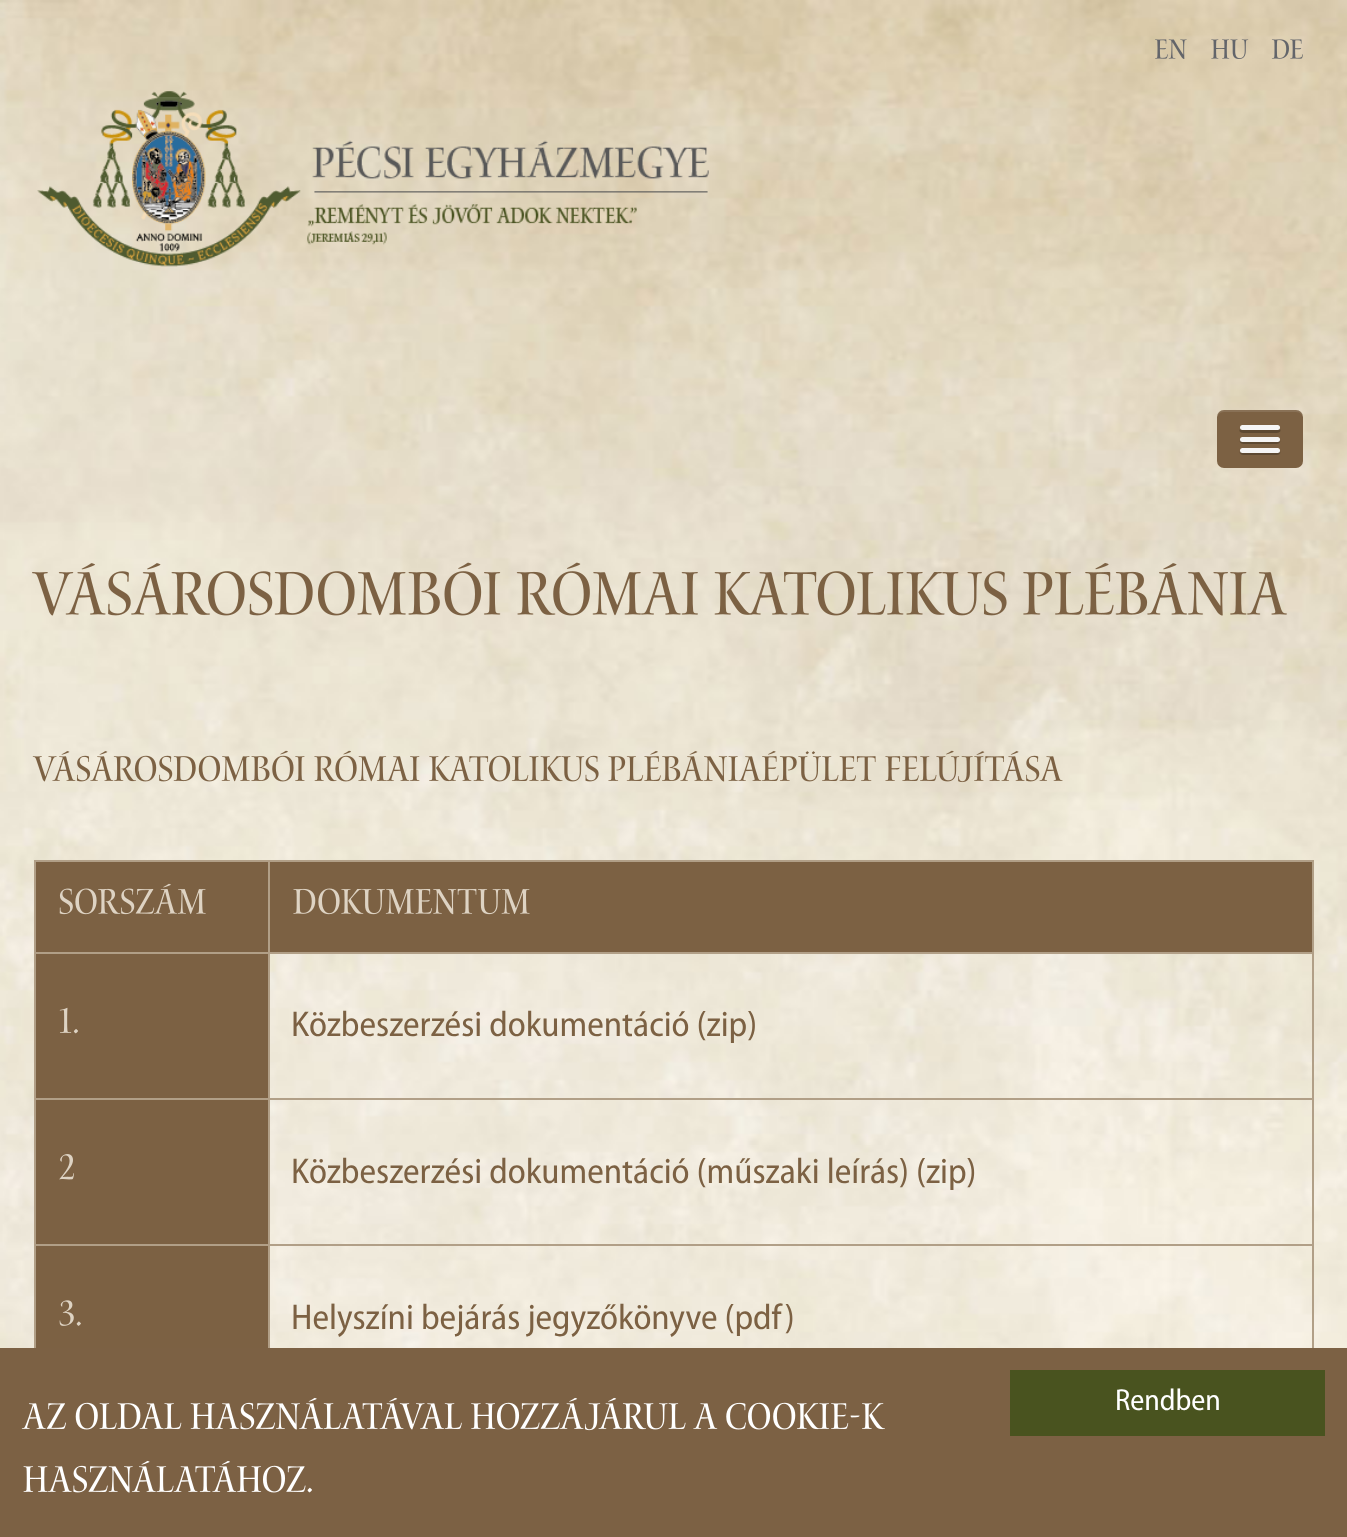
async function draw(canvas) {
  canvas.width = 1347
  canvas.height = 1537
  const ctx = canvas.getContext('2d')
  ctx.miterLimit = 4
  ctx.fontKerning = 'normal'
  async function loadImage(src) {
    const img = new Image()
    img.src = src
    await img.decode()
    return img
  }

  ctx.fillStyle = '#fff'
  ctx.fillRect(0, 0, 1347, 1537)
  ctx.drawImage(await loadImage('image0.png'), 0, 0, 1347, 1348)
  ctx.drawImage(await loadImage('image1.png'), 1155, 39, 32, 20)
  ctx.drawImage(await loadImage('image2.png'), 1211, 39, 38, 20)
  ctx.drawImage(await loadImage('image3.png'), 1271, 39, 32, 20)
  ctx.drawImage(await loadImage('image4.png'), 37, 91, 672, 176)
  ctx.fillStyle = '#ffffff12'
  ctx.beginPath()
  ctx.moveTo(1217, 417)
  ctx.lineTo(1217, 448)
  ctx.bezierCurveTo(1217, 470, 1214, 470, 1236, 470)
  ctx.lineTo(1284, 470)
  ctx.bezierCurveTo(1306, 470, 1303, 470, 1303, 448)
  ctx.lineTo(1303, 417)
  ctx.lineTo(1303, 461)
  ctx.bezierCurveTo(1303, 465, 1300, 468, 1296, 468)
  ctx.lineTo(1224, 468)
  ctx.bezierCurveTo(1220, 468, 1217, 465, 1217, 461)
  ctx.closePath()
  ctx.fill()
  ctx.fillStyle = '#7c6143'
  ctx.beginPath()
  ctx.roundRect(1217, 410, 86, 58, 7)
  ctx.fill()
  ctx.fillStyle = '#ffffff1a'
  ctx.beginPath()
  ctx.moveTo(1224, 412)
  ctx.lineTo(1296, 412)
  ctx.bezierCurveTo(1300, 412, 1303, 415, 1303, 418)
  ctx.bezierCurveTo(1303, 407, 1291, 410, 1284, 410)
  ctx.lineTo(1236, 410)
  ctx.bezierCurveTo(1229, 410, 1217, 407, 1217, 418)
  ctx.bezierCurveTo(1217, 415, 1220, 412, 1224, 412)
  ctx.closePath()
  ctx.fill()
  ctx.fillStyle = '#5d4932'
  ctx.beginPath()
  ctx.moveTo(1240, 429)
  ctx.bezierCurveTo(1237, 434, 1248, 433, 1248, 433)
  ctx.lineTo(1272, 433)
  ctx.bezierCurveTo(1272, 433, 1283, 434, 1280, 429)
  ctx.bezierCurveTo(1278, 430, 1242, 430, 1240, 429)
  ctx.closePath()
  ctx.fill()
  ctx.fillStyle = '#f5f5f5'
  ctx.beginPath()
  ctx.roundRect(1240, 425, 40, 5, 2.5)
  ctx.fill()
  ctx.fillStyle = '#5d4932'
  ctx.beginPath()
  ctx.moveTo(1240, 440)
  ctx.bezierCurveTo(1238, 445, 1248, 444, 1248, 444)
  ctx.lineTo(1272, 444)
  ctx.bezierCurveTo(1272, 444, 1282, 445, 1280, 440)
  ctx.bezierCurveTo(1278, 442, 1242, 442, 1240, 440)
  ctx.closePath()
  ctx.fill()
  ctx.fillStyle = '#f5f5f5'
  ctx.beginPath()
  ctx.roundRect(1240, 437, 40, 5, 2.5)
  ctx.fill()
  ctx.fillStyle = '#5d4932'
  ctx.beginPath()
  ctx.moveTo(1240, 451)
  ctx.bezierCurveTo(1238, 456, 1247, 455, 1248, 455)
  ctx.lineTo(1272, 455)
  ctx.bezierCurveTo(1273, 455, 1282, 456, 1280, 451)
  ctx.lineTo(1278, 452)
  ctx.lineTo(1242, 452)
  ctx.closePath()
  ctx.fill()
  ctx.fillStyle = '#f5f5f5'
  ctx.beginPath()
  ctx.roundRect(1240, 448, 40, 5, 2.5)
  ctx.fill()
  ctx.drawImage(await loadImage('image5.png'), 32, 562, 1255, 54)
  ctx.drawImage(await loadImage('image6.png'), 32, 750, 1031, 33)
  ctx.fillStyle = '#7c6143'
  ctx.fillRect(36, 862, 232, 90)
  ctx.fillStyle = '#b19f87'
  ctx.fillRect(268, 860, 1046, 2)
  ctx.fillRect(268, 952, 1046, 2)
  ctx.fillRect(268, 1098, 1046, 2)
  ctx.fillRect(268, 1244, 1046, 2)
  ctx.fillRect(268, 1244, 2, 104)
  ctx.fillRect(34, 1244, 236, 2)
  ctx.fillRect(268, 1098, 2, 149)
  ctx.fillRect(34, 1098, 236, 2)
  ctx.fillRect(268, 952, 2, 148)
  ctx.fillRect(34, 952, 236, 2)
  ctx.fillRect(268, 860, 2, 94)
  ctx.fillRect(34, 860, 236, 2)
  ctx.fillRect(34, 1244, 2, 104)
  ctx.fillRect(34, 1098, 2, 149)
  ctx.fillRect(34, 952, 2, 148)
  ctx.fillRect(34, 860, 2, 94)
  ctx.drawImage(await loadImage('image7.png'), 59, 883, 147, 32)
  ctx.fillStyle = '#7c6143'
  ctx.fillRect(270, 862, 1042, 90)
  ctx.fillStyle = '#b19f87'
  ctx.fillRect(1312, 1244, 2, 104)
  ctx.fillRect(1312, 1098, 2, 149)
  ctx.fillRect(1312, 952, 2, 148)
  ctx.fillRect(1312, 860, 2, 94)
  ctx.drawImage(await loadImage('image8.png'), 293, 888, 237, 27)
  ctx.fillStyle = '#7c6143'
  ctx.fillRect(36, 954, 232, 144)
  ctx.drawImage(await loadImage('image9.png'), 59, 1007, 19, 27)
  ctx.font = '36px Myriad'
  ctx.fillText('Közbeszerzési dokumentáció (zip)', 291, 1036)
  ctx.fillRect(36, 1100, 232, 144)
  ctx.drawImage(await loadImage('image10.png'), 59, 1154, 15, 26)
  ctx.fillText('Közbeszerzési dokumentáció (műszaki leírás) (zip)', 291, 1183)
  ctx.fillRect(36, 1246, 232, 102)
  ctx.drawImage(await loadImage('image11.png'), 59, 1300, 22, 26)
  ctx.fillText('Helyszíni bejárás jegyzőkönyve (pdf)', 291, 1329)
  ctx.fillStyle = '#7c6144'
  ctx.fillRect(0, 1348, 1347, 189)
  ctx.drawImage(await loadImage('image12.png'), 21, 1397, 864, 34)
  ctx.drawImage(await loadImage('image13.png'), 23, 1460, 289, 33)
  ctx.fillStyle = '#49531f'
  ctx.fillRect(1010, 1370, 315, 66)
  ctx.font = '30.5px Myriad'
  ctx.fillStyle = '#fff'
  ctx.fillText('Rendben', 1115, 1410)
}

draw(document.querySelector('canvas'))
